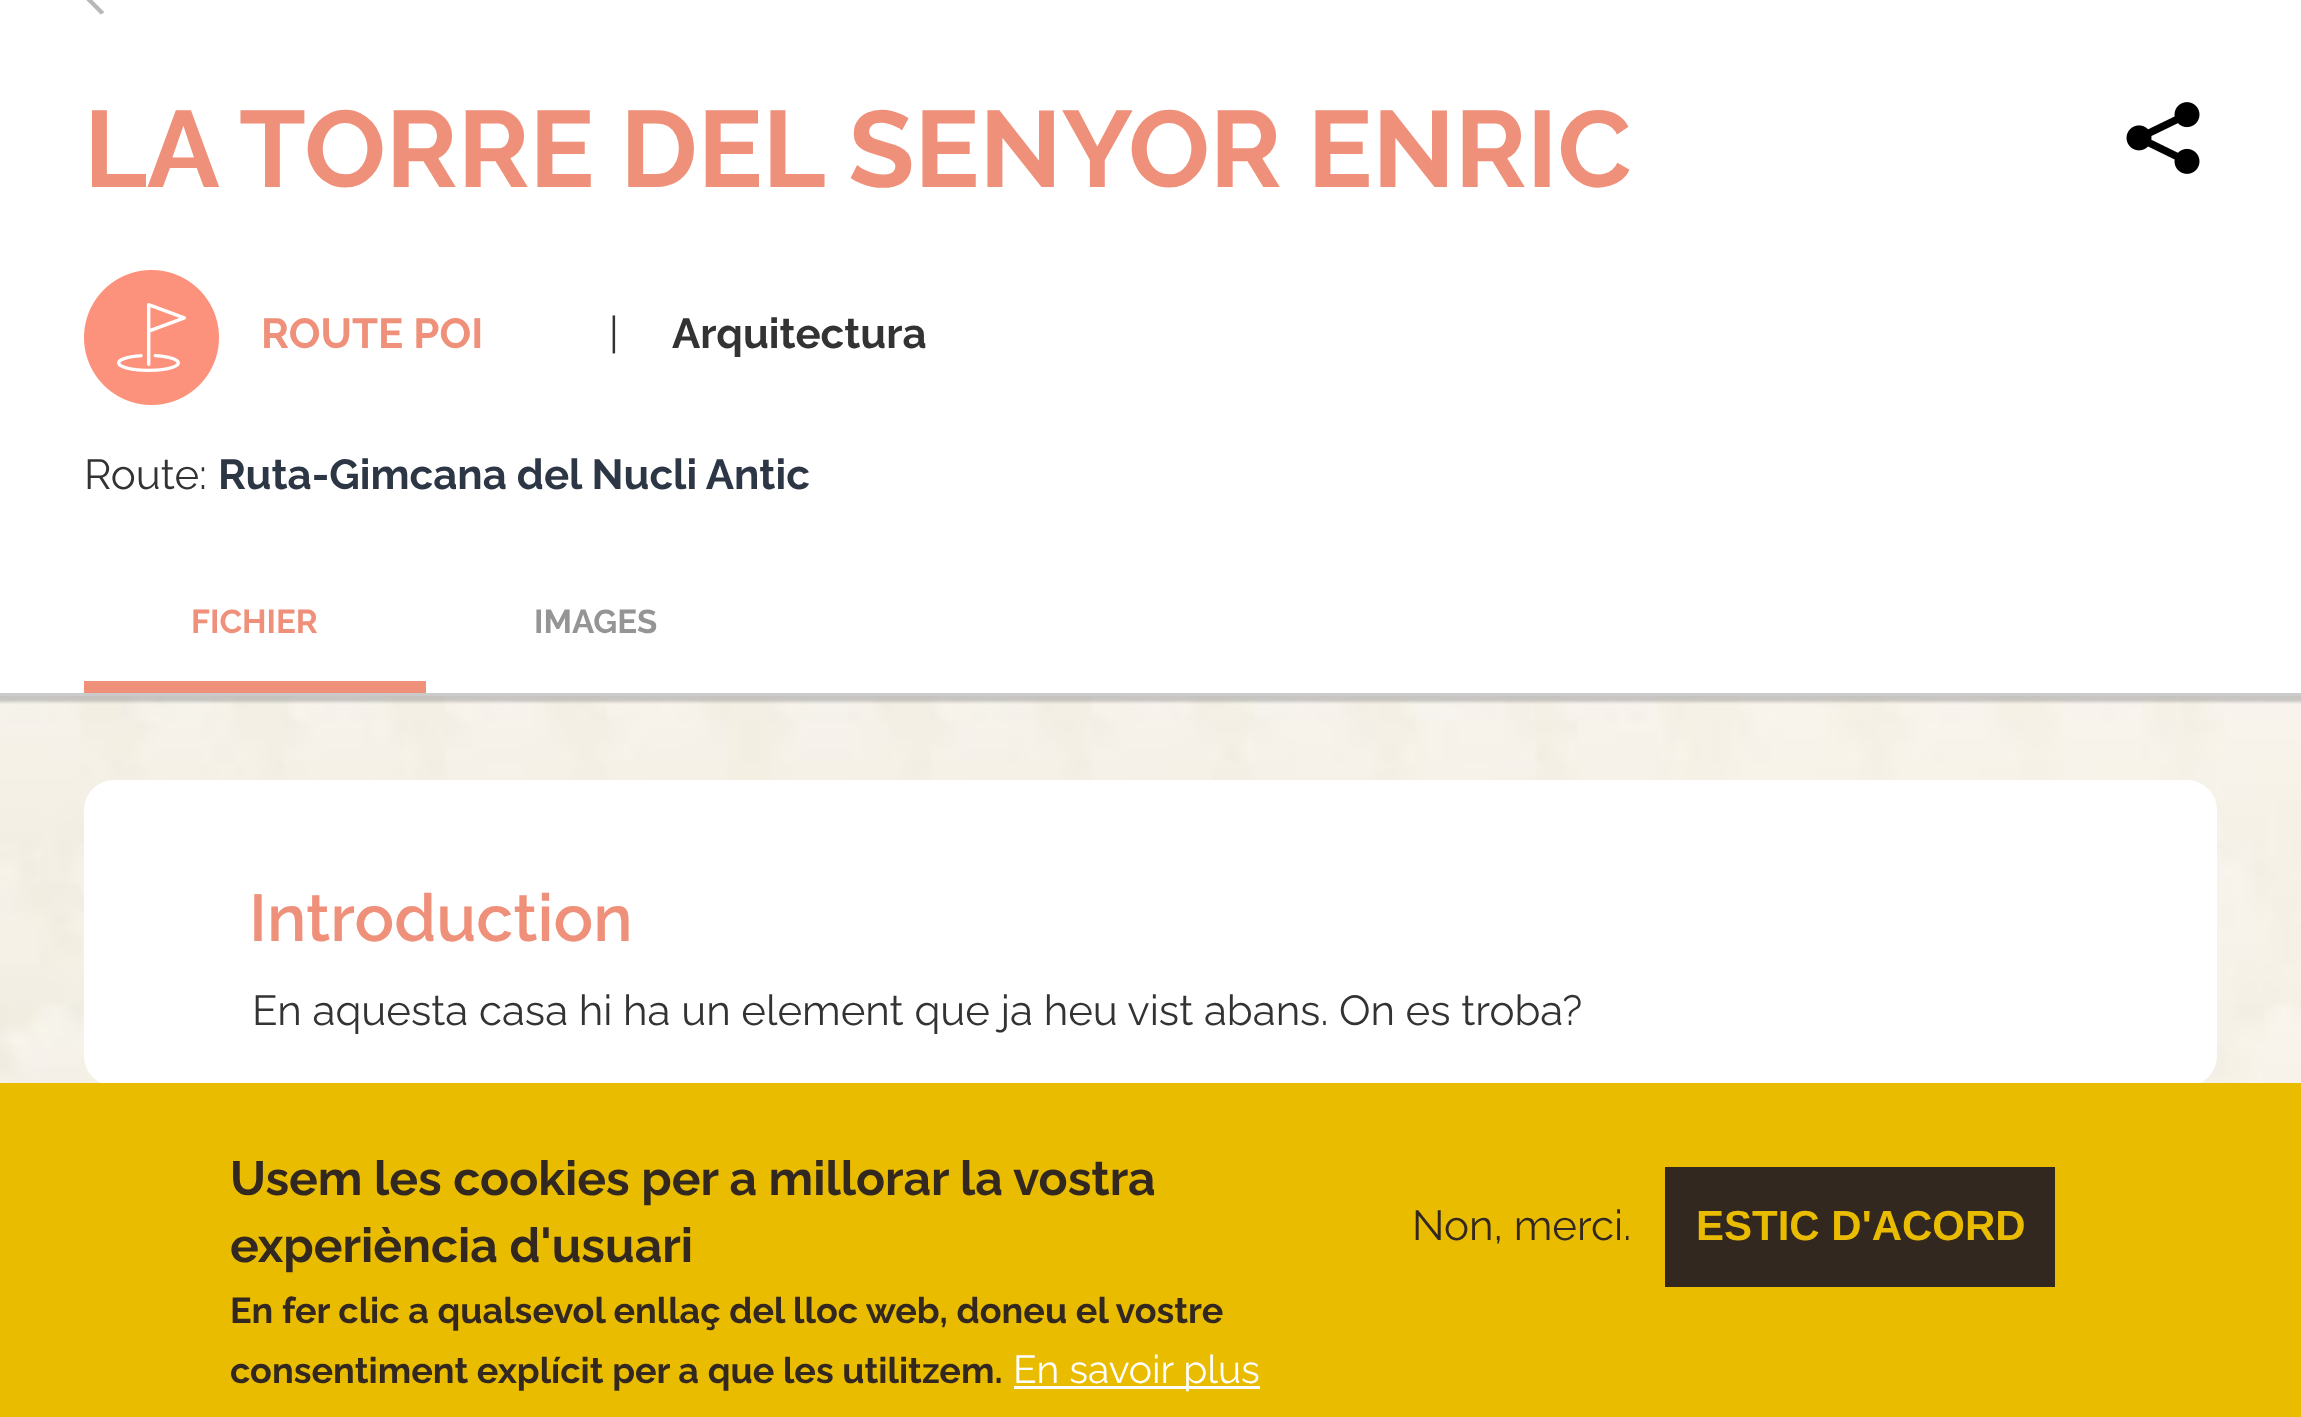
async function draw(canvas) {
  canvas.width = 2301
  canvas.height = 1417
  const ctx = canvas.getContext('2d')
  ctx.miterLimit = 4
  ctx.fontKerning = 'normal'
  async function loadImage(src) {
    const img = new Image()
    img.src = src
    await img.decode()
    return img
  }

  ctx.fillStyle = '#fff'
  ctx.fillRect(0, 0, 2301, 1417)
  ctx.drawImage(await loadImage('image0.png'), 0, 696, 2301, 387)
  ctx.fillStyle = '#97979780'
  ctx.filter = 'blur(1.5px)'
  ctx.beginPath()
  ctx.rect(-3, -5, 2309, 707)
  ctx.fill()
  ctx.filter = 'none'
  ctx.fillStyle = '#fff'
  ctx.fillRect(0, 0, 2301, 693)
  ctx.beginPath()
  ctx.moveTo(101, 13)
  ctx.lineTo(86, -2)
  ctx.lineTo(100, -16)
  ctx.lineTo(101.5, -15)
  ctx.lineTo(88.5, -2)
  ctx.lineTo(102.5, 12)
  ctx.closePath()
  ctx.strokeStyle = '#b8b8b8'
  ctx.lineWidth = 2.5
  ctx.lineCap = 'square'
  ctx.stroke()
  ctx.font = 'bold 108px Raleway'
  ctx.fillStyle = '#ef917a'
  ctx.fillText('LA TORRE DEL SENYOR ENRIC', 84, 187)
  ctx.drawImage(await loadImage('image1.png'), 2126, 102, 74, 72)
  ctx.drawImage(await loadImage('image2.png'), 84, 270, 135, 135)
  ctx.font = 'bold 42px Raleway'
  ctx.fillText('ROUTE POI', 261, 348)
  ctx.font = '42px Raleway'
  ctx.fillStyle = '#333'
  ctx.fillText('|', 609, 348)
  ctx.font = 'bold 42px Raleway'
  ctx.fillText('Arquitectura', 672, 348)
  ctx.font = '42px Raleway'
  ctx.fillText('Route:', 84, 489)
  ctx.font = 'bold 42px Raleway'
  ctx.fillStyle = '#2c3644'
  ctx.fillText('Ruta-Gimcana del Nucli Antic', 218, 489)
  ctx.fillStyle = '#ef917a'
  ctx.fillRect(84, 681, 342, 12)
  ctx.font = 'bold 33px Raleway'
  ctx.fillText('FICHIER', 191, 633)
  ctx.fillStyle = '#959595'
  ctx.fillText('IMAGES', 534, 633)
  ctx.fillStyle = '#fff'
  ctx.beginPath()
  ctx.roundRect(84, 780, 2133, 306, 30)
  ctx.fill()
  ctx.font = '600 66px Raleway'
  ctx.fillStyle = '#ef917a'
  ctx.fillText('Introduction', 249, 941)
  ctx.font = '42px Raleway'
  ctx.fillStyle = '#333'
  ctx.fillText('En aquesta casa hi ha un element que ja heu vist abans. On es troba?', 252, 1025)
  ctx.fillStyle = '#e9bc00'
  ctx.fillRect(0, 1083, 2301, 334)
  ctx.font = 'bold 48px Raleway'
  ctx.fillStyle = '#322820'
  ctx.fillText('Usem les cookies per a millorar la vostra', 230, 1195)
  ctx.fillText('experiència d\'usuari', 230, 1262)
  ctx.font = 'bold 36px Raleway'
  ctx.fillText('En fer clic a qualsevol enllaç del lloc web, doneu el vostre', 230, 1323)
  ctx.fillText('consentiment explícit per a que les utilitzem.', 230, 1383)
  ctx.fillStyle = '#fff'
  ctx.fillRect(1014, 1386, 246, 3)
  ctx.font = '39px Raleway'
  ctx.fillText('En savoir plus', 1013, 1383)
  ctx.font = '42px Raleway'
  ctx.fillStyle = '#322820'
  ctx.fillText('Non, merci.', 1412, 1240)
  ctx.fillRect(1665, 1167, 390, 120)
  ctx.font = 'bold 42px Liberation Sans'
  ctx.fillStyle = '#e9bc00'
  ctx.fillText('ESTIC D\'ACORD', 1696, 1240)
}

draw(document.querySelector('canvas'))
